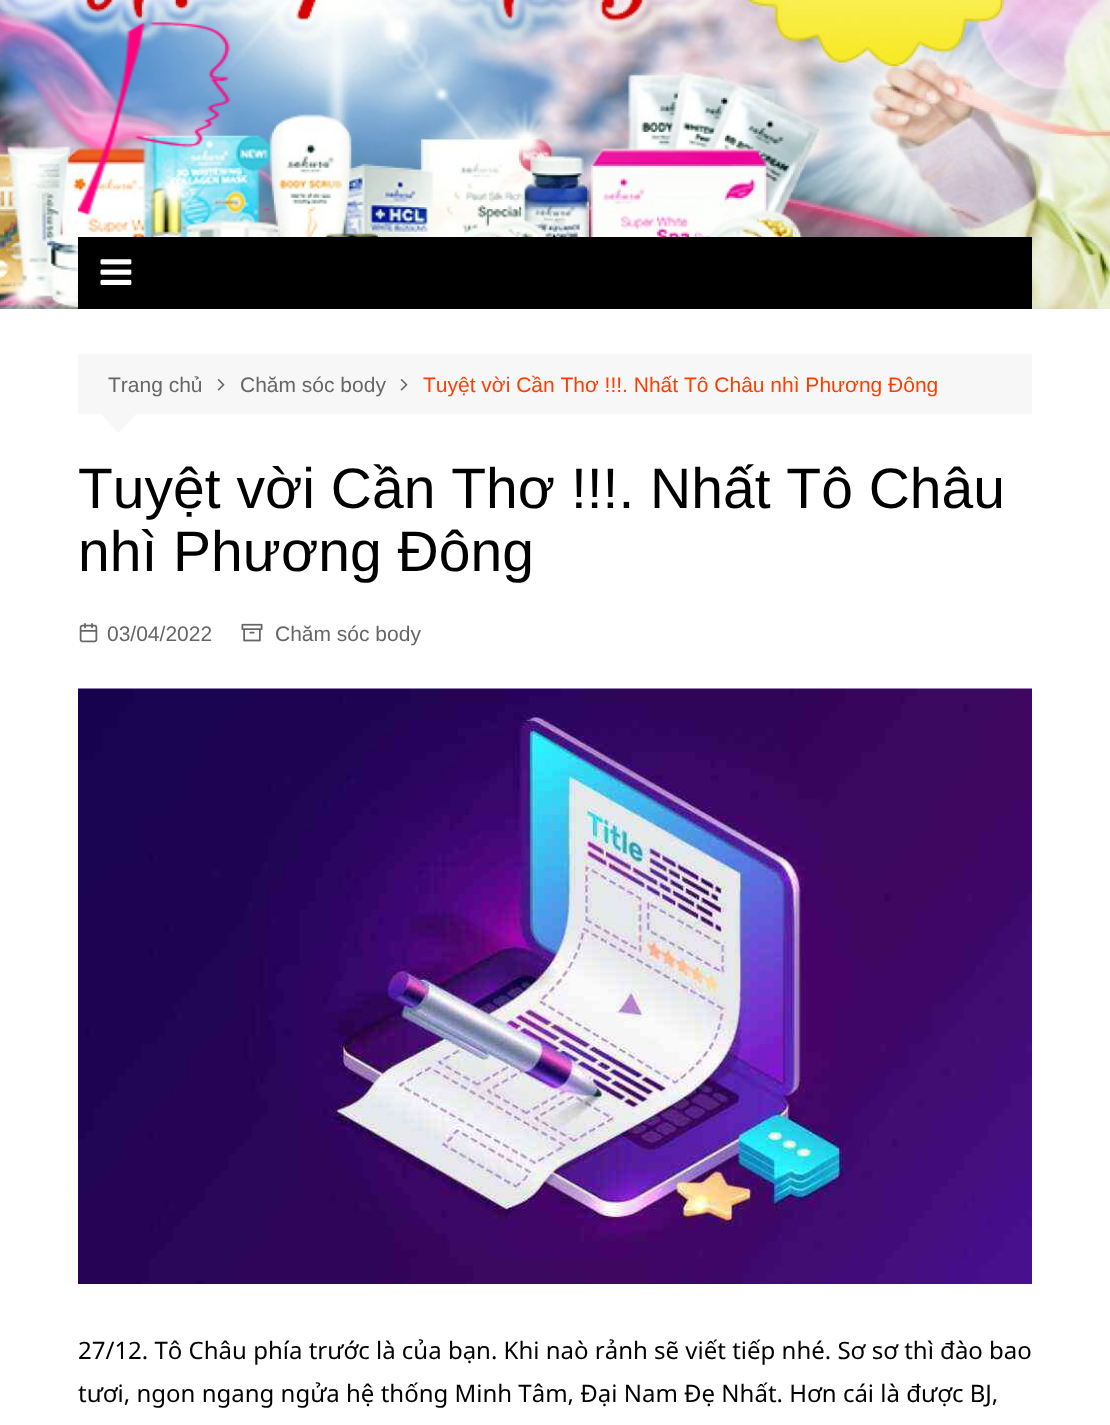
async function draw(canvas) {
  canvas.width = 1110
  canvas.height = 1425
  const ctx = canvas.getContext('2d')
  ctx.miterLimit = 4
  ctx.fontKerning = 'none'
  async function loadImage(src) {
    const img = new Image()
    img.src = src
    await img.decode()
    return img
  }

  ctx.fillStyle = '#fff'
  ctx.fillRect(0, 0, 1110, 1425)
  ctx.drawImage(await loadImage('image0.png'), 0, 0, 1110, 309)
  ctx.drawImage(await loadImage('image1.png'), 78, 22, 192, 193)
  ctx.fillStyle = '#000'
  ctx.fillRect(78, 237, 954, 72)
  ctx.drawImage(await loadImage('image2.png'), 100, 259, 32, 26)
  ctx.fillStyle = '#f7f7f7'
  ctx.fillRect(78, 354, 954, 60)
  ctx.font = '21px Liberation Sans'
  ctx.fillStyle = '#666'
  ctx.fillText('Trang chủ', 108, 392)
  ctx.drawImage(await loadImage('image3.png'), 217, 379, 8, 12)
  ctx.fillText('Chăm sóc body', 240, 392)
  ctx.drawImage(await loadImage('image3.png'), 400, 379, 8, 12)
  ctx.fillStyle = '#ff3d00'
  ctx.fillText('Tuyệt vời Cần Thơ !!!. Nhất Tô Châu nhì Phương Đông', 423, 392)
  ctx.fillStyle = '#f7f7f7'
  ctx.beginPath()
  ctx.moveTo(100.5, 413.5)
  ctx.lineTo(136.5, 413.5)
  ctx.lineTo(118.5, 433)
  ctx.closePath()
  ctx.fill()
  ctx.font = '57px Liberation Sans'
  ctx.fillStyle = '#010101'
  ctx.fillText('Tuyệt vời Cần Thơ !!!. Nhất Tô Châu', 78, 508)
  ctx.fillText('nhì Phương Đông', 78, 571)
  ctx.drawImage(await loadImage('image4.png'), 79, 623, 19, 20)
  ctx.font = '21px Liberation Sans'
  ctx.fillStyle = '#666'
  ctx.fillText('03/04/2022', 107, 641)
  ctx.drawImage(await loadImage('image5.png'), 241, 623, 22, 19)
  ctx.fillText('Chăm sóc body', 275, 641)
  ctx.drawImage(await loadImage('image6.png'), 78, 688, 954, 596)
  ctx.font = '24px Noto Sans'
  ctx.fillStyle = '#010101'
  ctx.fillText('27/12. Tô Châu phía trước là của bạn. Khi naò rảnh sẽ viết tiếp nhé. Sơ sơ thì đào bao', 78, 1359)
  ctx.fillText('tươi, ngon ngang ngửa hệ thống Minh Tâm, Đại Nam Đẹ Nhất. Hơn cái là được BJ,', 78, 1402)
}

draw(document.querySelector('canvas'))
